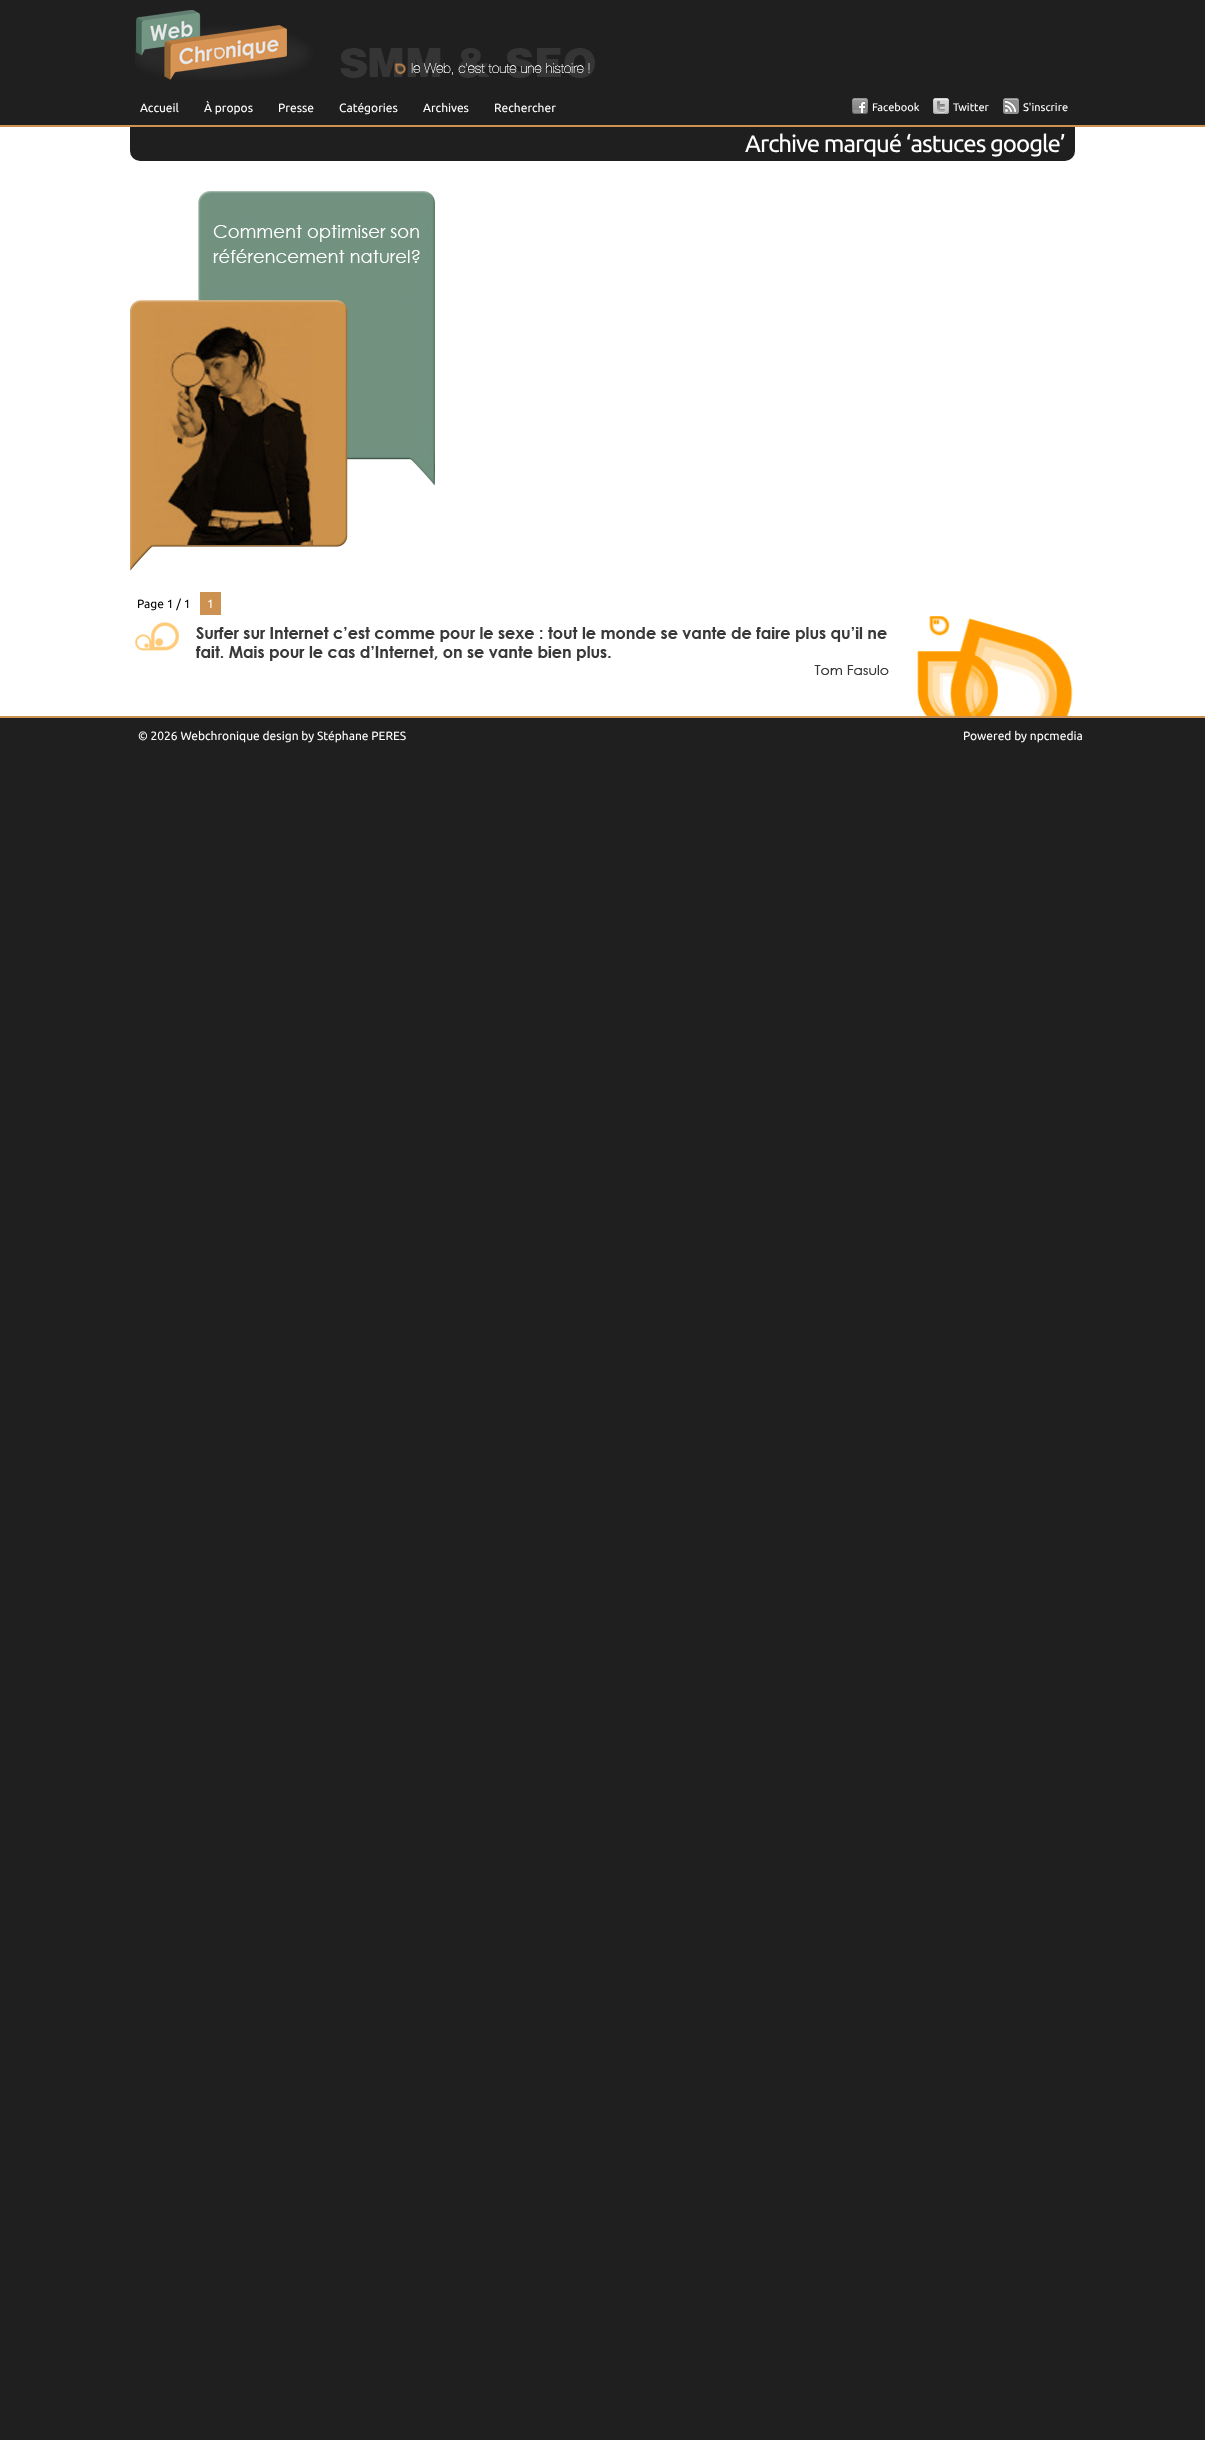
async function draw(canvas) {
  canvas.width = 1205
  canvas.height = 2440
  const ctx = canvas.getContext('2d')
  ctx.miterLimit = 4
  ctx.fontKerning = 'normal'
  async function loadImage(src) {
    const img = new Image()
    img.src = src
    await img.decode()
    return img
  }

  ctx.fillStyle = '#1f1f1f'
  ctx.fillRect(0, 0, 1205, 2440)
  ctx.fillStyle = '#fff'
  ctx.fillRect(0, 127, 1205, 589)
  ctx.drawImage(await loadImage('image0.png'), 135, 10, 460, 70)
  ctx.fillStyle = '#cd9251'
  ctx.fillRect(0, 125, 1205, 2)
  ctx.font = '12px Ubuntu'
  ctx.fillStyle = '#fff'
  ctx.fillText('Accueil', 140, 112)
  ctx.fillText('À propos', 204, 112)
  ctx.fillText('Presse', 278, 112)
  ctx.fillText('Catégories', 339, 112)
  ctx.fillText('Archives', 423, 112)
  ctx.fillText('Rechercher', 494, 112)
  ctx.drawImage(await loadImage('image1.png'), 852, 98, 16, 16)
  ctx.font = '11px Ubuntu'
  ctx.fillText('Facebook', 872, 111)
  ctx.drawImage(await loadImage('image2.png'), 933, 98, 16, 16)
  ctx.fillText('Twitter', 953, 111)
  ctx.drawImage(await loadImage('image3.png'), 1003, 98, 16, 16)
  ctx.fillText('S\'inscrire', 1023, 111)
  ctx.fillStyle = '#1f1f1f'
  ctx.beginPath()
  ctx.roundRect(130, 127, 945, 34, [0, 0, 10, 10])
  ctx.fill()
  ctx.letterSpacing = '-1px'
  ctx.font = '24px Ubuntu'
  ctx.fillStyle = '#fff'
  ctx.fillText('Archive marqué ‘astuces google’', 745, 152)
  ctx.drawImage(await loadImage('image4.png'), 130, 191, 305, 380)
  ctx.letterSpacing = '0px'
  ctx.font = '12px Ubuntu'
  ctx.fillStyle = '#000'
  ctx.fillText('Page 1 / 1', 137, 608)
  ctx.fillStyle = '#cd9251'
  ctx.fillRect(200, 592, 21, 23)
  ctx.fillStyle = '#fff'
  ctx.fillText('1', 207, 608)
  ctx.drawImage(await loadImage('image5.png'), 135, 616, 938, 100)
  ctx.fillStyle = '#cd9251'
  ctx.fillRect(0, 716, 1205, 2)
  ctx.fillStyle = '#fff'
  ctx.fillText('© 2026 Webchronique design by Stéphane PERES', 138, 740)
  ctx.fillText('Powered by npcmedia', 963, 740)
}

draw(document.querySelector('canvas'))
